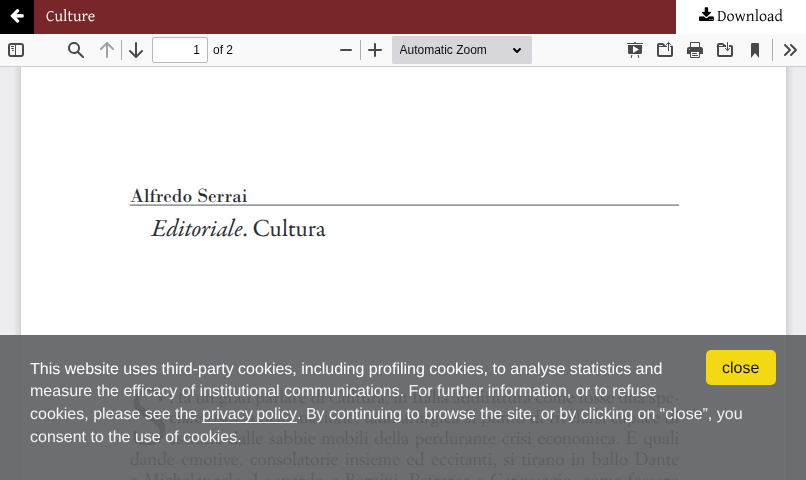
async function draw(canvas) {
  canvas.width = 806
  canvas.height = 480
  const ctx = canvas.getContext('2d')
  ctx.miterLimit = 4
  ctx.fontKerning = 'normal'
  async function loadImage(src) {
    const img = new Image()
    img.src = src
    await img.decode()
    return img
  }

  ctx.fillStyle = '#fff'
  ctx.fillRect(0, 0, 806, 480)
  ctx.fillStyle = '#782629'
  ctx.fillRect(34, 0, 642, 34)
  ctx.fillStyle = '#000'
  ctx.fillRect(0, 0, 34, 34)
  ctx.drawImage(await loadImage('image0.png'), 10, 8, 14, 15)
  ctx.font = '16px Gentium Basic'
  ctx.fillStyle = '#fff'
  ctx.fillText('Culture', 46, 21)
  ctx.drawImage(await loadImage('image1.png'), 699, 7, 15, 14)
  ctx.fillStyle = '#000'
  ctx.fillText('Download', 717, 21)
  ctx.drawImage(await loadImage('image2.png'), 0, 34, 806, 446)
  ctx.fillStyle = '#616265eb'
  ctx.fillRect(0, 335, 806, 145)
  ctx.fillStyle = '#f2d914'
  ctx.beginPath()
  ctx.roundRect(706, 350, 70, 35, 5)
  ctx.fill()
  ctx.font = '16px Liberation Sans'
  ctx.fillStyle = '#141414'
  ctx.fillText('close', 722, 373)
  ctx.fillStyle = '#fff'
  ctx.fillText('This website uses third-party cookies, including profiling cookies, to analyse statistics and', 30, 374)
  ctx.fillStyle = '#f3f3f4'
  ctx.fillText('measure the efficacy of institutional communications. For further information, or to refuse', 30, 396)
  ctx.fillText('cookies, please see the', 30, 419)
  ctx.fillStyle = '#ffffffeb'
  ctx.fillRect(202, 422, 95, 1)
  ctx.wordSpacing = '-1px'
  ctx.fillStyle = '#f3f3f4'
  ctx.fillText('privacy policy', 202, 419)
  ctx.wordSpacing = '0px'
  ctx.fillText('. By continuing to browse the site, or by clicking on “close”, you', 297, 419)
  ctx.fillText('consent to the use of cookies.', 30, 442)
}

draw(document.querySelector('canvas'))
